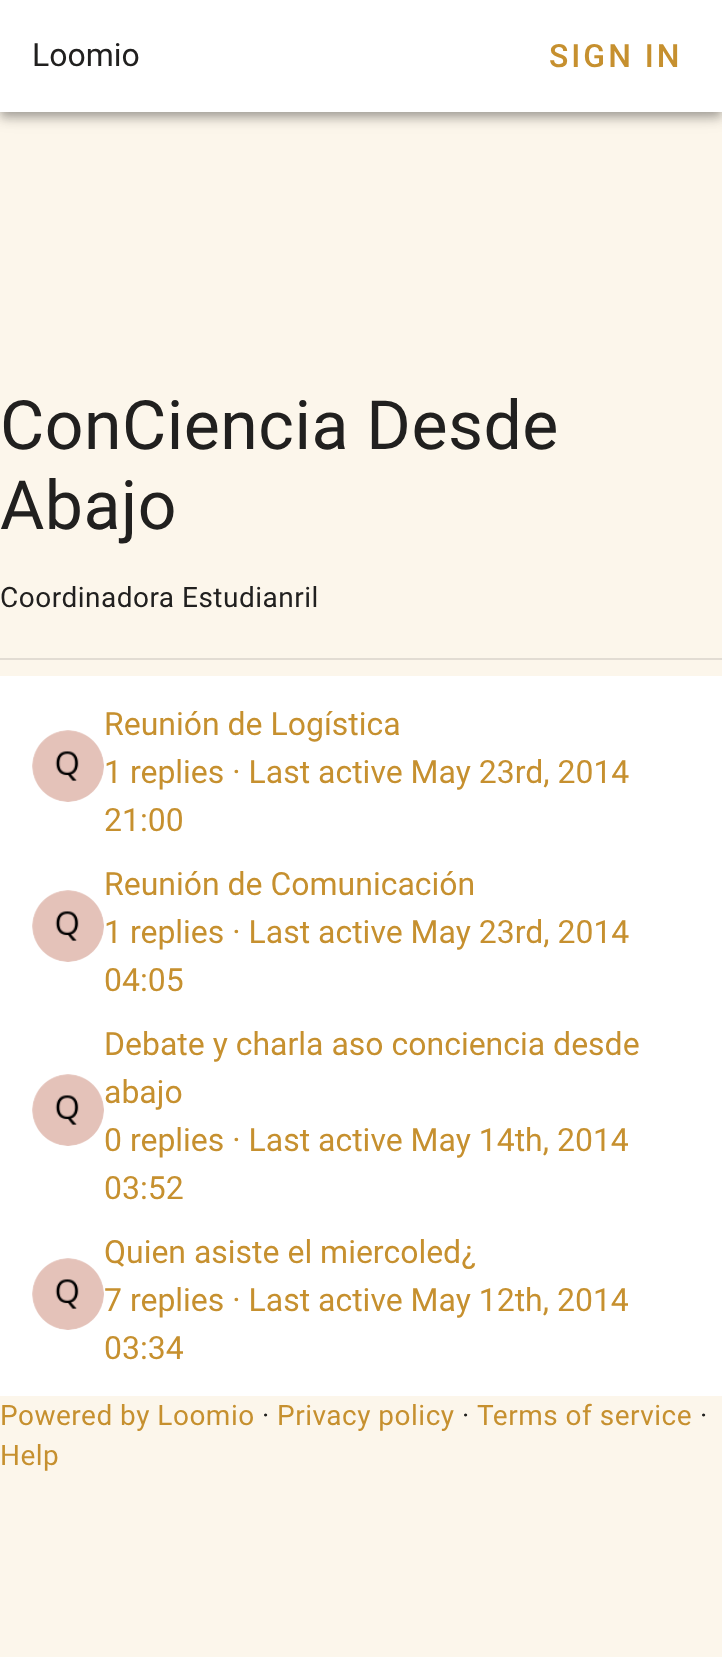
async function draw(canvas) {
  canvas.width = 722
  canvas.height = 1657
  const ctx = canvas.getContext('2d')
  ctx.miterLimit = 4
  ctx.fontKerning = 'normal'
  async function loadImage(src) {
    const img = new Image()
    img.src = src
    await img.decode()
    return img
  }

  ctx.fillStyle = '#fcf6eb'
  ctx.fillRect(0, 0, 722, 1657)
  ctx.fillStyle = '#0000001f'
  ctx.filter = 'blur(10px)'
  ctx.beginPath()
  ctx.rect(0, 2, 722, 112)
  ctx.fill()
  ctx.filter = 'none'
  ctx.fillStyle = '#00000024'
  ctx.filter = 'blur(5px)'
  ctx.beginPath()
  ctx.rect(0, 8, 722, 112)
  ctx.fill()
  ctx.filter = 'none'
  ctx.fillStyle = '#00000033'
  ctx.filter = 'blur(4px)'
  ctx.beginPath()
  ctx.rect(2, 6, 718, 108)
  ctx.fill()
  ctx.filter = 'none'
  ctx.fillStyle = '#fff'
  ctx.fillRect(0, 0, 722, 112)
  ctx.font = '32px Roboto'
  ctx.fillStyle = '#21201f'
  ctx.fillText('Loomio', 32, 66)
  ctx.letterSpacing = '3px'
  ctx.font = '500 32px Roboto'
  ctx.fillStyle = '#c6902f'
  ctx.fillText('SIGN IN', 549, 67)
  ctx.letterSpacing = '0.5px'
  ctx.font = '68px Roboto'
  ctx.fillStyle = '#21201f'
  ctx.fillText('ConCiencia Desde', 0, 449)
  ctx.fillText('Abajo', 0, 529)
  ctx.font = '28px Roboto'
  ctx.fillText('Coordinadora Estudianril', 0, 607)
  ctx.fillStyle = '#e2dcd3'
  ctx.fillRect(0, 658, 722, 2)
  ctx.fillStyle = '#fff'
  ctx.fillRect(0, 676, 722, 720)
  ctx.drawImage(await loadImage('image0.png'), 32, 730, 72, 72)
  ctx.letterSpacing = '0px'
  ctx.font = '32px Roboto'
  ctx.fillStyle = '#c6902f'
  ctx.fillText('Reunión de Logística', 104, 735)
  ctx.fillText('1 replies · Last active May 23rd, 2014', 104, 783)
  ctx.fillText('21:00', 104, 831)
  ctx.drawImage(await loadImage('image0.png'), 32, 890, 72, 72)
  ctx.fillText('Reunión de Comunicación', 104, 895)
  ctx.fillText('1 replies · Last active May 23rd, 2014', 104, 943)
  ctx.fillText('04:05', 104, 991)
  ctx.drawImage(await loadImage('image0.png'), 32, 1074, 72, 72)
  ctx.fillText('Debate y charla aso conciencia desde', 104, 1055)
  ctx.fillText('abajo', 104, 1103)
  ctx.fillText('0 replies · Last active May 14th, 2014', 104, 1151)
  ctx.fillText('03:52', 104, 1199)
  ctx.drawImage(await loadImage('image1.png'), 32, 1258, 72, 72)
  ctx.fillText('Quien asiste el miercoled¿', 104, 1263)
  ctx.fillText('7 replies · Last active May 12th, 2014', 104, 1311)
  ctx.fillText('03:34', 104, 1359)
  ctx.letterSpacing = '0.5px'
  ctx.font = '28px Roboto'
  ctx.fillText('Powered by Loomio', 0, 1425)
  ctx.fillStyle = '#21201f'
  ctx.fillText('·', 262, 1425)
  ctx.fillStyle = '#c6902f'
  ctx.fillText('Privacy policy', 277, 1425)
  ctx.fillStyle = '#21201f'
  ctx.fillText('·', 462, 1425)
  ctx.fillStyle = '#c6902f'
  ctx.fillText('Terms of service', 477, 1425)
  ctx.fillStyle = '#21201f'
  ctx.fillText('·', 700, 1425)
  ctx.fillStyle = '#c6902f'
  ctx.fillText('Help', 0, 1465)
}

draw(document.querySelector('canvas'))
